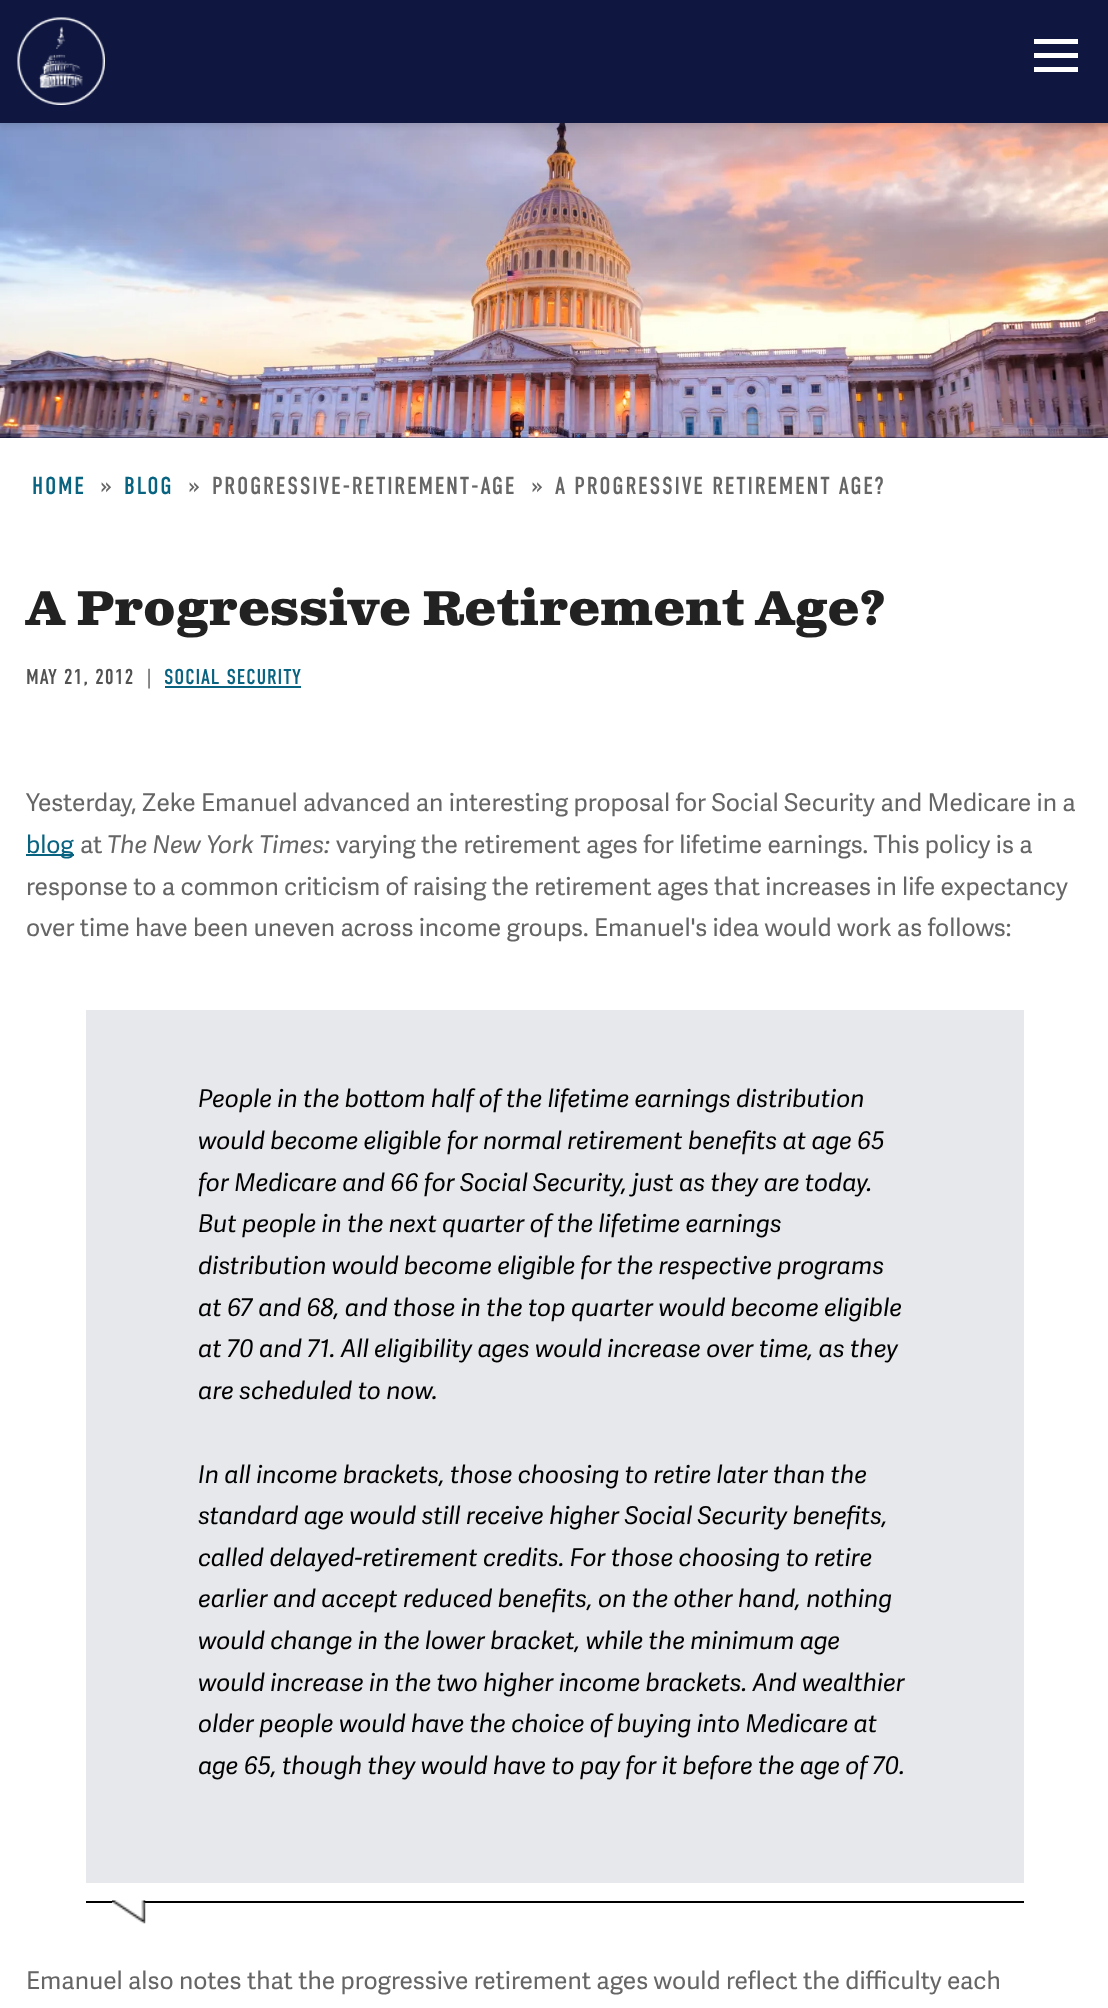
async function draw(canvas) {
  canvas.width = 1108
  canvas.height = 2008
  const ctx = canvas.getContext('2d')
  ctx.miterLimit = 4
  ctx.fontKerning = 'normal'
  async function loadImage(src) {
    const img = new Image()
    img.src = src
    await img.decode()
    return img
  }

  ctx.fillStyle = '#fff'
  ctx.fillRect(0, 0, 1108, 2008)
  ctx.fillStyle = '#0f1741'
  ctx.fillRect(0, 437, 1108, 1)
  ctx.drawImage(await loadImage('image1.png'), 0, 123, 1108, 315)
  ctx.fillStyle = '#2222221a'
  ctx.filter = 'blur(2.5px)'
  ctx.beginPath()
  ctx.rect(0, 4, 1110, 122)
  ctx.fill()
  ctx.filter = 'none'
  ctx.fillStyle = '#0f1741'
  ctx.fillRect(0, 0, 1108, 123)
  ctx.drawImage(await loadImage('image0.png'), 17, 17, 88, 88)
  ctx.fillStyle = '#fff'
  ctx.fillRect(1034, 53, 44, 5)
  ctx.fillRect(1034, 39, 44, 5)
  ctx.fillRect(1034, 67, 44, 5)
  ctx.letterSpacing = '1.75px'
  ctx.font = '24.5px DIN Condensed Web'
  ctx.fillStyle = '#086381'
  ctx.fillText('HOME', 32, 494)
  ctx.fillStyle = '#666'
  ctx.fillText('»', 101, 494)
  ctx.fillStyle = '#086381'
  ctx.fillText('BLOG', 124, 494)
  ctx.fillStyle = '#666'
  ctx.fillText('»', 189, 494)
  ctx.fillText('PROGRESSIVE-RETIREMENT-AGE', 212, 494)
  ctx.fillText('»', 532, 494)
  ctx.fillText('A PROGRESSIVE RETIREMENT AGE?', 555, 494)
  ctx.letterSpacing = '0px'
  ctx.font = 'bold 49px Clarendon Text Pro'
  ctx.fillStyle = '#222'
  ctx.fillText('A Progressive Retirement Age?', 26, 625)
  ctx.letterSpacing = '0.9px'
  ctx.font = '21.5px DIN Condensed Web'
  ctx.fillStyle = '#525252'
  ctx.fillText('MAY 21, 2012', 26, 684)
  ctx.fillStyle = '#666'
  ctx.fillText('|', 147, 684)
  ctx.fillStyle = '#086381'
  ctx.fillText('SOCIAL SECURITY', 164, 684)
  ctx.fillRect(165, 686, 136, 2)
  ctx.letterSpacing = '0px'
  ctx.font = '24.5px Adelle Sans'
  ctx.fillStyle = '#666'
  ctx.fillText('Yesterday, Zeke Emanuel advanced an interesting proposal for Social Security and Medicare in a', 26, 811)
  ctx.fillStyle = '#086381'
  ctx.fillRect(26, 854, 48, 2)
  ctx.fillText('blog', 26, 853)
  ctx.fillStyle = '#666'
  ctx.fillText('at', 80, 853)
  ctx.font = 'italic 24.5px Adelle Sans'
  ctx.fillText('The New York Times:', 107, 853)
  ctx.font = '24.5px Adelle Sans'
  ctx.fillText('varying the retirement ages for lifetime earnings. This policy is a', 336, 853)
  ctx.fillText('response to a common criticism of raising the retirement ages that increases in life expectancy', 26, 895)
  ctx.fillText('over time have been uneven across income groups. Emanuel\'s idea would work as follows:', 26, 936)
  ctx.fillStyle = '#e7e8ec'
  ctx.fillRect(86, 1010, 938, 873)
  ctx.fillStyle = '#000'
  ctx.fillRect(86, 1901, 938, 2)
  ctx.font = 'italic 24.5px Adelle Sans'
  ctx.fillText('People in the bottom half of the lifetime earnings distribution', 198, 1107)
  ctx.fillText('would become eligible for normal retirement benefits at age 65', 198, 1149)
  ctx.fillText('for Medicare and 66 for Social Security, just as they are today.', 198, 1191)
  ctx.fillText('But people in the next quarter of the lifetime earnings', 198, 1232)
  ctx.fillText('distribution would become eligible for the respective programs', 198, 1274)
  ctx.fillText('at 67 and 68, and those in the top quarter would become eligible', 198, 1316)
  ctx.fillText('at 70 and 71. All eligibility ages would increase over time, as they', 198, 1357)
  ctx.fillText('are scheduled to now.', 198, 1399)
  ctx.fillText('In all income brackets, those choosing to retire later than the', 198, 1483)
  ctx.fillText('standard age would still receive higher Social Security benefits,', 198, 1524)
  ctx.fillText('called delayed-retirement credits. For those choosing to retire', 198, 1566)
  ctx.fillText('earlier and accept reduced benefits, on the other hand, nothing', 198, 1607)
  ctx.fillText('would change in the lower bracket, while the minimum age', 198, 1649)
  ctx.fillText('would increase in the two higher income brackets. And wealthier', 198, 1691)
  ctx.fillText('older people would have the choice of buying into Medicare at', 198, 1732)
  ctx.fillText('age 65, though they would have to pay for it before the age of 70.', 198, 1774)
  ctx.drawImage(await loadImage('image2.png'), 112, 1900, 34, 24)
  ctx.font = '24.5px Adelle Sans'
  ctx.fillStyle = '#666'
  ctx.fillText('Emanuel also notes that the progressive retirement ages would reflect the difficulty each', 26, 1989)
}

draw(document.querySelector('canvas'))
